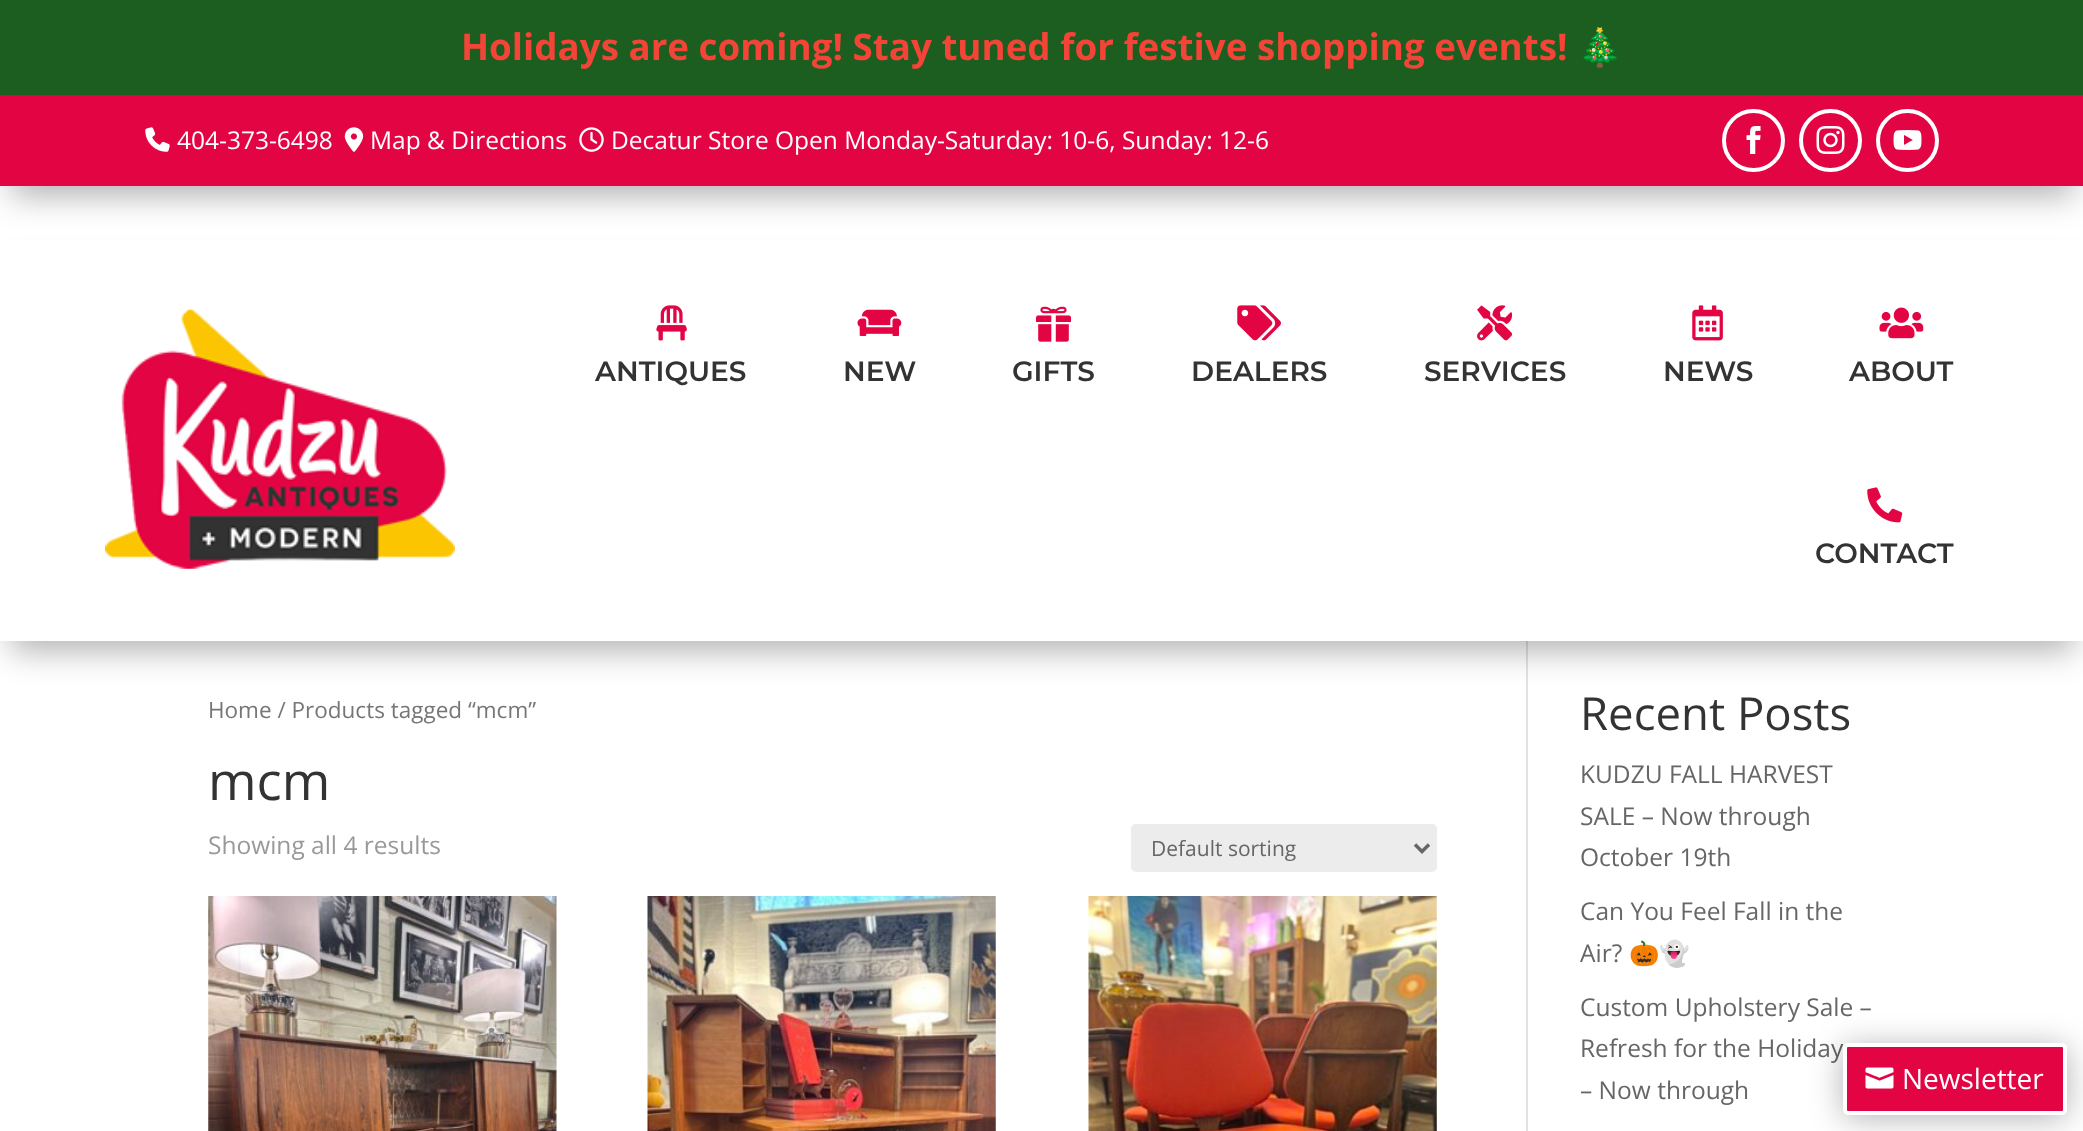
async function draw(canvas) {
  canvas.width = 2083
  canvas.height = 1131
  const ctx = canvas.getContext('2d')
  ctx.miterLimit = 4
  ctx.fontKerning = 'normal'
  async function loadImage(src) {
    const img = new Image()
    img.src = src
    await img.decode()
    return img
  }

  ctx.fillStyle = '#fff'
  ctx.fillRect(0, 0, 2083, 1131)
  ctx.fillStyle = '#0000004d'
  ctx.filter = 'blur(16px)'
  ctx.beginPath()
  ctx.rect(11, 126, 2063, 70)
  ctx.fill()
  ctx.filter = 'none'
  ctx.fillStyle = '#1b5e20'
  ctx.fillRect(0, 0, 2083, 95)
  ctx.font = 'bold 36.75px Open Sans'
  ctx.fillStyle = '#f44437'
  ctx.fillText('Holidays are coming! Stay tuned for festive shopping events!', 461, 60)
  ctx.font = 'bold 36.75px Noto Color Emoji'
  ctx.fillText('🎄', 1577, 60)
  ctx.fillStyle = '#e30444'
  ctx.fillRect(0, 95, 2083, 91)
  ctx.drawImage(await loadImage('image0.png'), 145, 127, 25, 25)
  ctx.font = '24.5px Open Sans'
  ctx.fillStyle = '#fff'
  ctx.fillText('404-373-6498', 177, 149)
  ctx.drawImage(await loadImage('image1.png'), 344, 127, 20, 25)
  ctx.fillText('Map & Directions', 370, 149)
  ctx.drawImage(await loadImage('image2.png'), 579, 127, 25, 25)
  ctx.fillText('Decatur Store Open Monday-Saturday: 10-6, Sunday: 12-6', 611, 149)
  ctx.beginPath()
  ctx.arc(1753.5, 140.5, 29.5, 0, 2 * Math.PI)
  ctx.strokeStyle = '#fff'
  ctx.lineWidth = 4
  ctx.stroke()
  ctx.drawImage(await loadImage('image3.png'), 1746, 126, 15, 28)
  ctx.beginPath()
  ctx.arc(1830.5, 140.5, 29.5, 0, 2 * Math.PI)
  ctx.stroke()
  ctx.drawImage(await loadImage('image4.png'), 1816, 126, 29, 28)
  ctx.beginPath()
  ctx.arc(1907.5, 140.5, 29.5, 0, 2 * Math.PI)
  ctx.stroke()
  ctx.drawImage(await loadImage('image5.png'), 1893, 130, 29, 20)
  ctx.fillStyle = '#e2e2e2'
  ctx.fillRect(1526, 641, 2, 490)
  ctx.fillStyle = '#0000004d'
  ctx.filter = 'blur(16px)'
  ctx.beginPath()
  ctx.rect(11, 270, 2063, 381)
  ctx.fill()
  ctx.filter = 'none'
  ctx.fillStyle = '#fff'
  ctx.fillRect(0, 240, 2083, 401)
  ctx.drawImage(await loadImage('image6.png'), 105, 309, 350, 260)
  ctx.drawImage(await loadImage('image7.png'), 656, 305, 31, 36)
  ctx.font = '600 28px Montserrat'
  ctx.fillStyle = '#333'
  ctx.fillText('ANTIQUES', 595, 381)
  ctx.drawImage(await loadImage('image8.png'), 857, 309, 45, 27)
  ctx.fillText('NEW', 843, 381)
  ctx.drawImage(await loadImage('image9.png'), 1036, 306, 35, 36)
  ctx.fillText('GIFTS', 1012, 381)
  ctx.drawImage(await loadImage('image10.png'), 1237, 305, 44, 36)
  ctx.fillText('DEALERS', 1191, 381)
  ctx.drawImage(await loadImage('image11.png'), 1477, 305, 36, 36)
  ctx.fillText('SERVICES', 1424, 381)
  ctx.drawImage(await loadImage('image12.png'), 1692, 305, 31, 36)
  ctx.fillText('NEWS', 1663, 381)
  ctx.drawImage(await loadImage('image13.png'), 1879, 307, 45, 32)
  ctx.fillText('ABOUT', 1849, 381)
  ctx.drawImage(await loadImage('image14.png'), 1867, 487, 36, 36)
  ctx.fillText('CONTACT', 1815, 563)
  ctx.font = '22.5px Open Sans'
  ctx.fillStyle = '#767676'
  ctx.fillText('Home / Products tagged “mcm”', 208, 718)
  ctx.font = '52.5px Open Sans'
  ctx.fillStyle = '#333'
  ctx.fillText('mcm', 208, 800)
  ctx.font = '24.5px Open Sans'
  ctx.fillStyle = '#999'
  ctx.fillText('Showing all 4 results', 208, 854)
  ctx.fillStyle = '#ececec'
  ctx.beginPath()
  ctx.roundRect(1131, 824, 306, 48, 5)
  ctx.fill()
  ctx.beginPath()
  ctx.moveTo(1415, 844.5)
  ctx.lineTo(1422, 851.5)
  ctx.lineTo(1429, 844.5)
  ctx.strokeStyle = '#666'
  ctx.lineWidth = 3.5
  ctx.stroke()
  ctx.font = '21px Open Sans'
  ctx.fillStyle = '#666'
  ctx.fillText('Default sorting', 1151, 856)
  ctx.drawImage(await loadImage('image15.png'), 208, 896, 349, 235)
  ctx.drawImage(await loadImage('image16.png'), 647, 896, 349, 235)
  ctx.drawImage(await loadImage('image17.png'), 1088, 896, 349, 235)
  ctx.font = '45.5px Open Sans'
  ctx.fillStyle = '#333'
  ctx.fillText('Recent Posts', 1580, 730)
  ctx.font = '24.5px Open Sans'
  ctx.fillStyle = '#666'
  ctx.fillText('KUDZU FALL HARVEST', 1580, 783)
  ctx.fillText('SALE – Now through', 1580, 825)
  ctx.fillText('October 19th', 1580, 866)
  ctx.fillText('Can You Feel Fall in the', 1580, 920)
  ctx.fillText('Air?', 1580, 962)
  ctx.font = '24.5px Noto Color Emoji'
  ctx.fillText('🎃👻', 1629, 962)
  ctx.font = '24.5px Open Sans'
  ctx.fillText('Custom Upholstery Sale –', 1580, 1016)
  ctx.fillText('Refresh for the Holiday', 1580, 1057)
  ctx.fillText('– Now through', 1580, 1099)
  ctx.fillStyle = '#0000004d'
  ctx.filter = 'blur(16px)'
  ctx.beginPath()
  ctx.roundRect(1843, 1047, 224, 71, 5)
  ctx.fill()
  ctx.filter = 'none'
  ctx.fillStyle = '#e30444'
  ctx.beginPath()
  ctx.roundRect(1845, 1045, 220, 68, 3)
  ctx.fill()
  ctx.strokeStyle = '#fff'
  ctx.lineWidth = 4
  ctx.stroke()
  ctx.drawImage(await loadImage('image18.png'), 1865, 1067, 29, 22)
  ctx.font = '28px Open Sans'
  ctx.fillStyle = '#fff'
  ctx.fillText('Newsletter', 1902, 1089)
}

draw(document.querySelector('canvas'))
